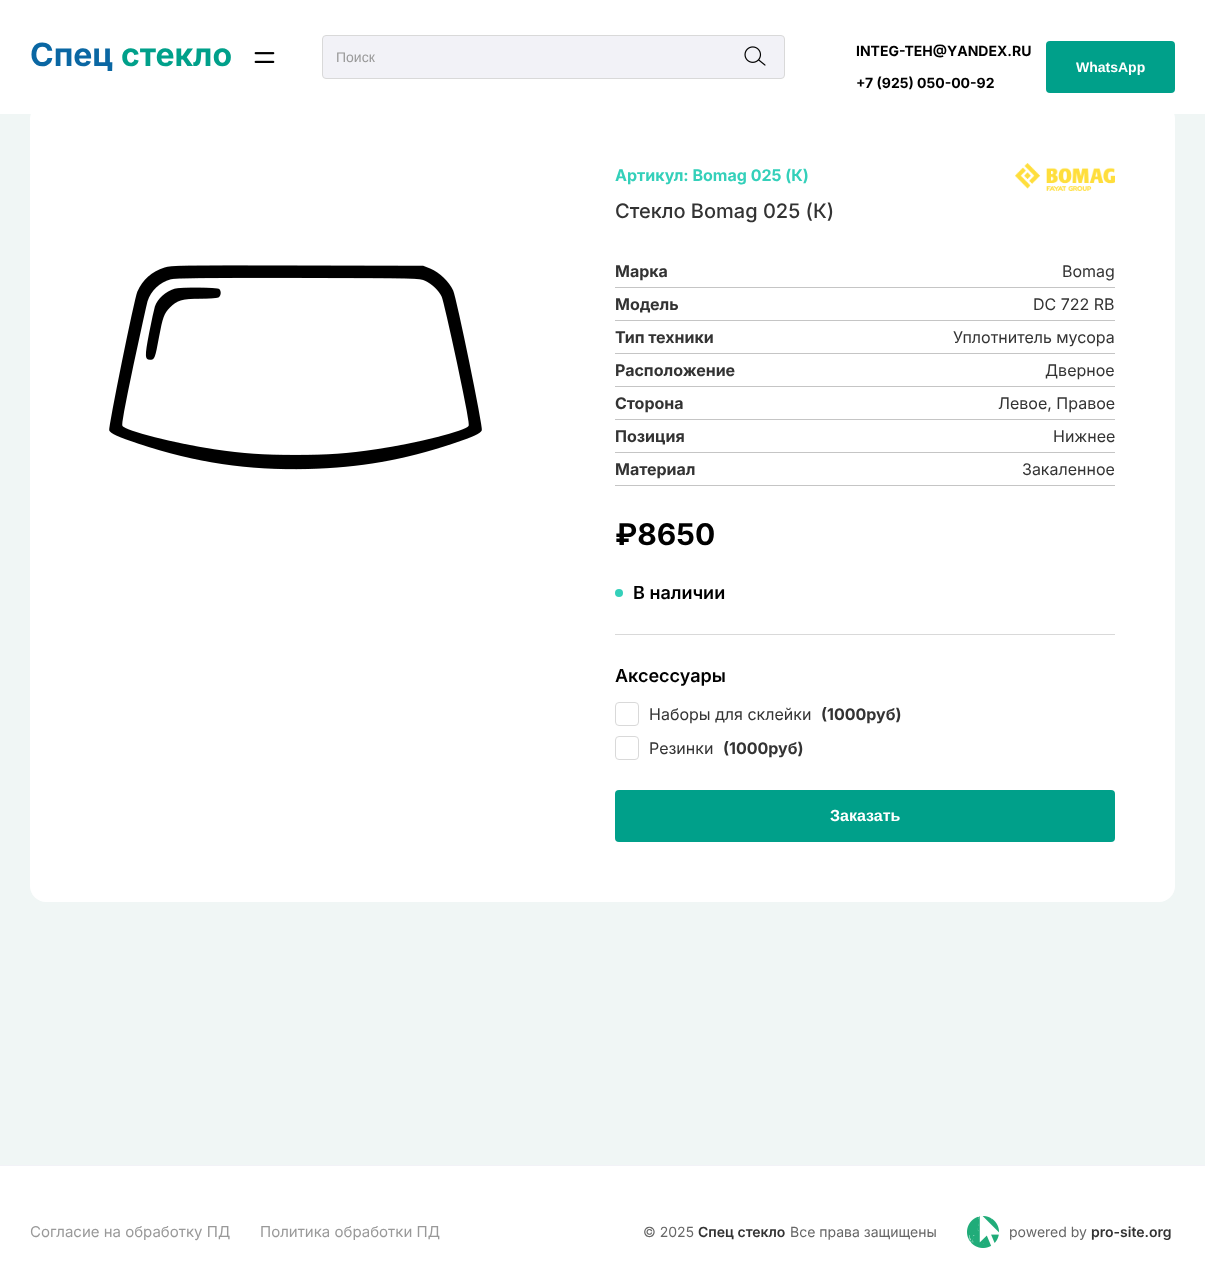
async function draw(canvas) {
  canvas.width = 1205
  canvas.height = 1276
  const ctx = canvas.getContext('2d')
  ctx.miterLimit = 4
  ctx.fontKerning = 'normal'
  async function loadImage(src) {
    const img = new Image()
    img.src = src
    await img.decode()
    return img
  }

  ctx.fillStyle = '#f0f6f5'
  ctx.fillRect(0, 0, 1205, 1276)
  ctx.fillStyle = '#fff'
  ctx.beginPath()
  ctx.roundRect(30, 103, 1145, 799, 16)
  ctx.fill()
  ctx.fillRect(0, 0, 1205, 114)
  ctx.font = 'bold 32px Inter'
  ctx.fillStyle = '#0a67a3'
  ctx.fillText('Спец', 30, 66)
  ctx.fillStyle = '#00a08a'
  ctx.fillText('стекло', 121, 66)
  ctx.drawImage(await loadImage('image0.png'), 254, 52, 21, 11)
  ctx.fillStyle = '#f2f2f7'
  ctx.beginPath()
  ctx.roundRect(322.5, 35.5, 462, 43, 3.5)
  ctx.fill()
  ctx.strokeStyle = '#d9d9d9'
  ctx.stroke()
  ctx.font = '14px Liberation Sans'
  ctx.fillStyle = '#999'
  ctx.fillText('Поиск', 336, 62)
  ctx.drawImage(await loadImage('image1.png'), 744, 46, 22, 20)
  ctx.font = 'bold 14px Inter'
  ctx.fillStyle = '#000'
  ctx.fillText('INTEG-TEH@YANDEX.RU', 856, 56)
  ctx.fillText('+7 (925) 050-00-92', 856, 88)
  ctx.fillStyle = '#00a08a'
  ctx.beginPath()
  ctx.roundRect(1046, 41, 129, 52, 4)
  ctx.fill()
  ctx.font = 'bold 14px Liberation Sans'
  ctx.fillStyle = '#fff'
  ctx.fillText('WhatsApp', 1076, 72)
  ctx.drawImage(await loadImage('image2.png'), 109, 265, 373, 205)
  ctx.font = 'bold 16px Inter'
  ctx.fillStyle = '#34d0ba'
  ctx.fillText('Артикул: Bomag 025 (К)', 615, 181)
  ctx.font = '500 20px Inter'
  ctx.fillStyle = '#333'
  ctx.fillText('Стекло Bomag 025 (К)', 615, 218)
  ctx.drawImage(await loadImage('image3.png'), 1015, 163, 100, 28)
  ctx.fillStyle = '#c5c5c5'
  ctx.fillRect(615, 287, 500, 1)
  ctx.font = 'bold 16px Inter'
  ctx.fillStyle = '#333'
  ctx.fillText('Марка', 615, 277)
  ctx.font = '16px Inter'
  ctx.fillText('Bomag', 1062, 277)
  ctx.fillStyle = '#c5c5c5'
  ctx.fillRect(615, 320, 500, 1)
  ctx.font = 'bold 16px Inter'
  ctx.fillStyle = '#333'
  ctx.fillText('Модель', 615, 310)
  ctx.font = '16px Inter'
  ctx.fillText('DC 722 RB', 1033, 310)
  ctx.fillStyle = '#c5c5c5'
  ctx.fillRect(615, 353, 500, 1)
  ctx.font = 'bold 16px Inter'
  ctx.fillStyle = '#333'
  ctx.fillText('Тип техники', 615, 343)
  ctx.font = '16px Inter'
  ctx.fillText('Уплотнитель мусора', 953, 343)
  ctx.fillStyle = '#c5c5c5'
  ctx.fillRect(615, 386, 500, 1)
  ctx.font = 'bold 16px Inter'
  ctx.fillStyle = '#333'
  ctx.fillText('Расположение', 615, 376)
  ctx.font = '16px Inter'
  ctx.fillText('Дверное', 1045, 376)
  ctx.fillStyle = '#c5c5c5'
  ctx.fillRect(615, 419, 500, 1)
  ctx.font = 'bold 16px Inter'
  ctx.fillStyle = '#333'
  ctx.fillText('Сторона', 615, 409)
  ctx.font = '16px Inter'
  ctx.fillText('Левое, Правое', 998, 409)
  ctx.fillStyle = '#c5c5c5'
  ctx.fillRect(615, 452, 500, 1)
  ctx.font = 'bold 16px Inter'
  ctx.fillStyle = '#333'
  ctx.fillText('Позиция', 615, 442)
  ctx.font = '16px Inter'
  ctx.fillText('Нижнее', 1053, 442)
  ctx.fillStyle = '#c5c5c5'
  ctx.fillRect(615, 485, 500, 1)
  ctx.font = 'bold 16px Inter'
  ctx.fillStyle = '#333'
  ctx.fillText('Материал', 615, 475)
  ctx.font = '16px Inter'
  ctx.fillText('Закаленное', 1022, 475)
  ctx.font = 'bold 30px Inter'
  ctx.fillStyle = '#000'
  ctx.fillText('₽8650', 615, 545)
  ctx.fillStyle = '#34d0ba'
  ctx.beginPath()
  ctx.arc(619, 593, 4, 0, 2 * Math.PI)
  ctx.fill()
  ctx.font = '600 18px Inter'
  ctx.fillStyle = '#000'
  ctx.fillText('В наличии', 633, 599)
  ctx.fillStyle = '#d9d9d9'
  ctx.fillRect(615, 634, 500, 1)
  ctx.fillStyle = '#000'
  ctx.fillText('Аксессуары', 615, 682)
  ctx.beginPath()
  ctx.roundRect(615.5, 702.5, 23, 23, 3.5)
  ctx.stroke()
  ctx.font = '16px Inter'
  ctx.fillStyle = '#333'
  ctx.fillText('Наборы для склейки', 649, 720)
  ctx.font = 'bold 16px Inter'
  ctx.fillText('(1000руб)', 821, 720)
  ctx.beginPath()
  ctx.roundRect(615.5, 736.5, 23, 23, 3.5)
  ctx.stroke()
  ctx.font = '16px Inter'
  ctx.fillText('Резинки', 649, 754)
  ctx.font = 'bold 16px Inter'
  ctx.fillText('(1000руб)', 723, 754)
  ctx.fillStyle = '#00a08a'
  ctx.beginPath()
  ctx.roundRect(615, 790, 500, 52, 4)
  ctx.fill()
  ctx.font = 'bold 16px Liberation Sans'
  ctx.fillStyle = '#fff'
  ctx.fillText('Заказать', 830, 821)
  ctx.fillRect(0, 1166, 1205, 110)
  ctx.fillStyle = '#f2f2f7'
  ctx.fillRect(0, 1165, 1205, 1)
  ctx.font = '15px Inter'
  ctx.fillStyle = '#999'
  ctx.fillText('Согласие на обработку ПД', 30, 1237)
  ctx.fillText('Политика обработки ПД', 260, 1237)
  ctx.font = '14px Inter'
  ctx.fillStyle = '#666'
  ctx.fillText('© 2025', 643, 1237)
  ctx.font = '600 14px Inter'
  ctx.fillStyle = '#333'
  ctx.fillText('Спец стекло', 698, 1237)
  ctx.font = '14px Inter'
  ctx.fillStyle = '#666'
  ctx.fillText('Все права защищены', 790, 1237)
  ctx.drawImage(await loadImage('image4.png'), 967, 1216, 32, 32)
  ctx.fillText('powered by', 1009, 1237)
  ctx.font = '600 14px Inter'
  ctx.fillStyle = '#333'
  ctx.fillText('pro-site.org', 1091, 1237)
}

draw(document.querySelector('canvas'))
